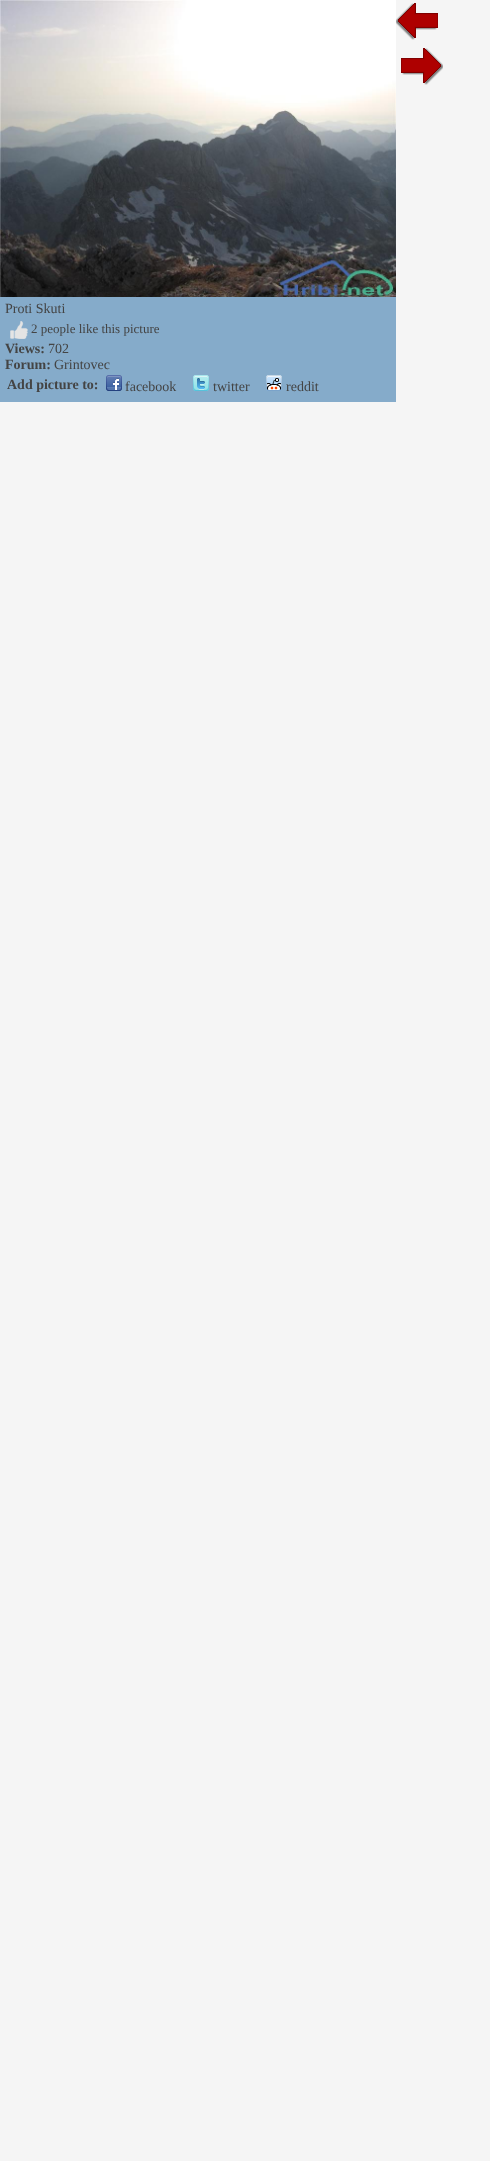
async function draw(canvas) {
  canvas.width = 490
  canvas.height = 2161
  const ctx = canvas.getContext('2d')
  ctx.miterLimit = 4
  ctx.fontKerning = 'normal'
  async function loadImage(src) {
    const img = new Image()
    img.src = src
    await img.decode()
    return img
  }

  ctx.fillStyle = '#f5f5f5'
  ctx.fillRect(0, 0, 490, 2161)
  ctx.drawImage(await loadImage('image0.png'), 396, 3, 42, 37)
  ctx.drawImage(await loadImage('image1.png'), 401, 48, 42, 37)
  ctx.fillStyle = '#85abca'
  ctx.fillRect(0, 297, 396, 105)
  ctx.drawImage(await loadImage('image2.png'), 0, 0, 396, 297)
  ctx.font = '14px Liberation Serif'
  ctx.fillStyle = '#444'
  ctx.fillText('Proti Skuti', 5, 313)
  ctx.drawImage(await loadImage('image3.png'), 10, 321, 18, 18)
  ctx.font = '13px Liberation Serif'
  ctx.fillText('2 people like this picture', 31, 333)
  ctx.font = 'bold 14px Liberation Serif'
  ctx.fillText('Views:', 5, 353)
  ctx.font = '14px Liberation Serif'
  ctx.fillText('702', 48, 353)
  ctx.font = 'bold 14px Liberation Serif'
  ctx.fillText('Forum:', 5, 369)
  ctx.font = '14px Liberation Serif'
  ctx.fillText('Grintovec', 54, 369)
  ctx.font = 'bold 14px Liberation Serif'
  ctx.fillText('Add picture to:', 7, 389)
  ctx.drawImage(await loadImage('image4.png'), 106, 375, 16, 16)
  ctx.font = '14px Liberation Serif'
  ctx.fillText('facebook', 125, 391)
  ctx.drawImage(await loadImage('image5.png'), 193, 375, 16, 16)
  ctx.fillText('twitter', 213, 391)
  ctx.drawImage(await loadImage('image6.png'), 266, 375, 16, 16)
  ctx.fillText('reddit', 286, 391)
}

draw(document.querySelector('canvas'))
